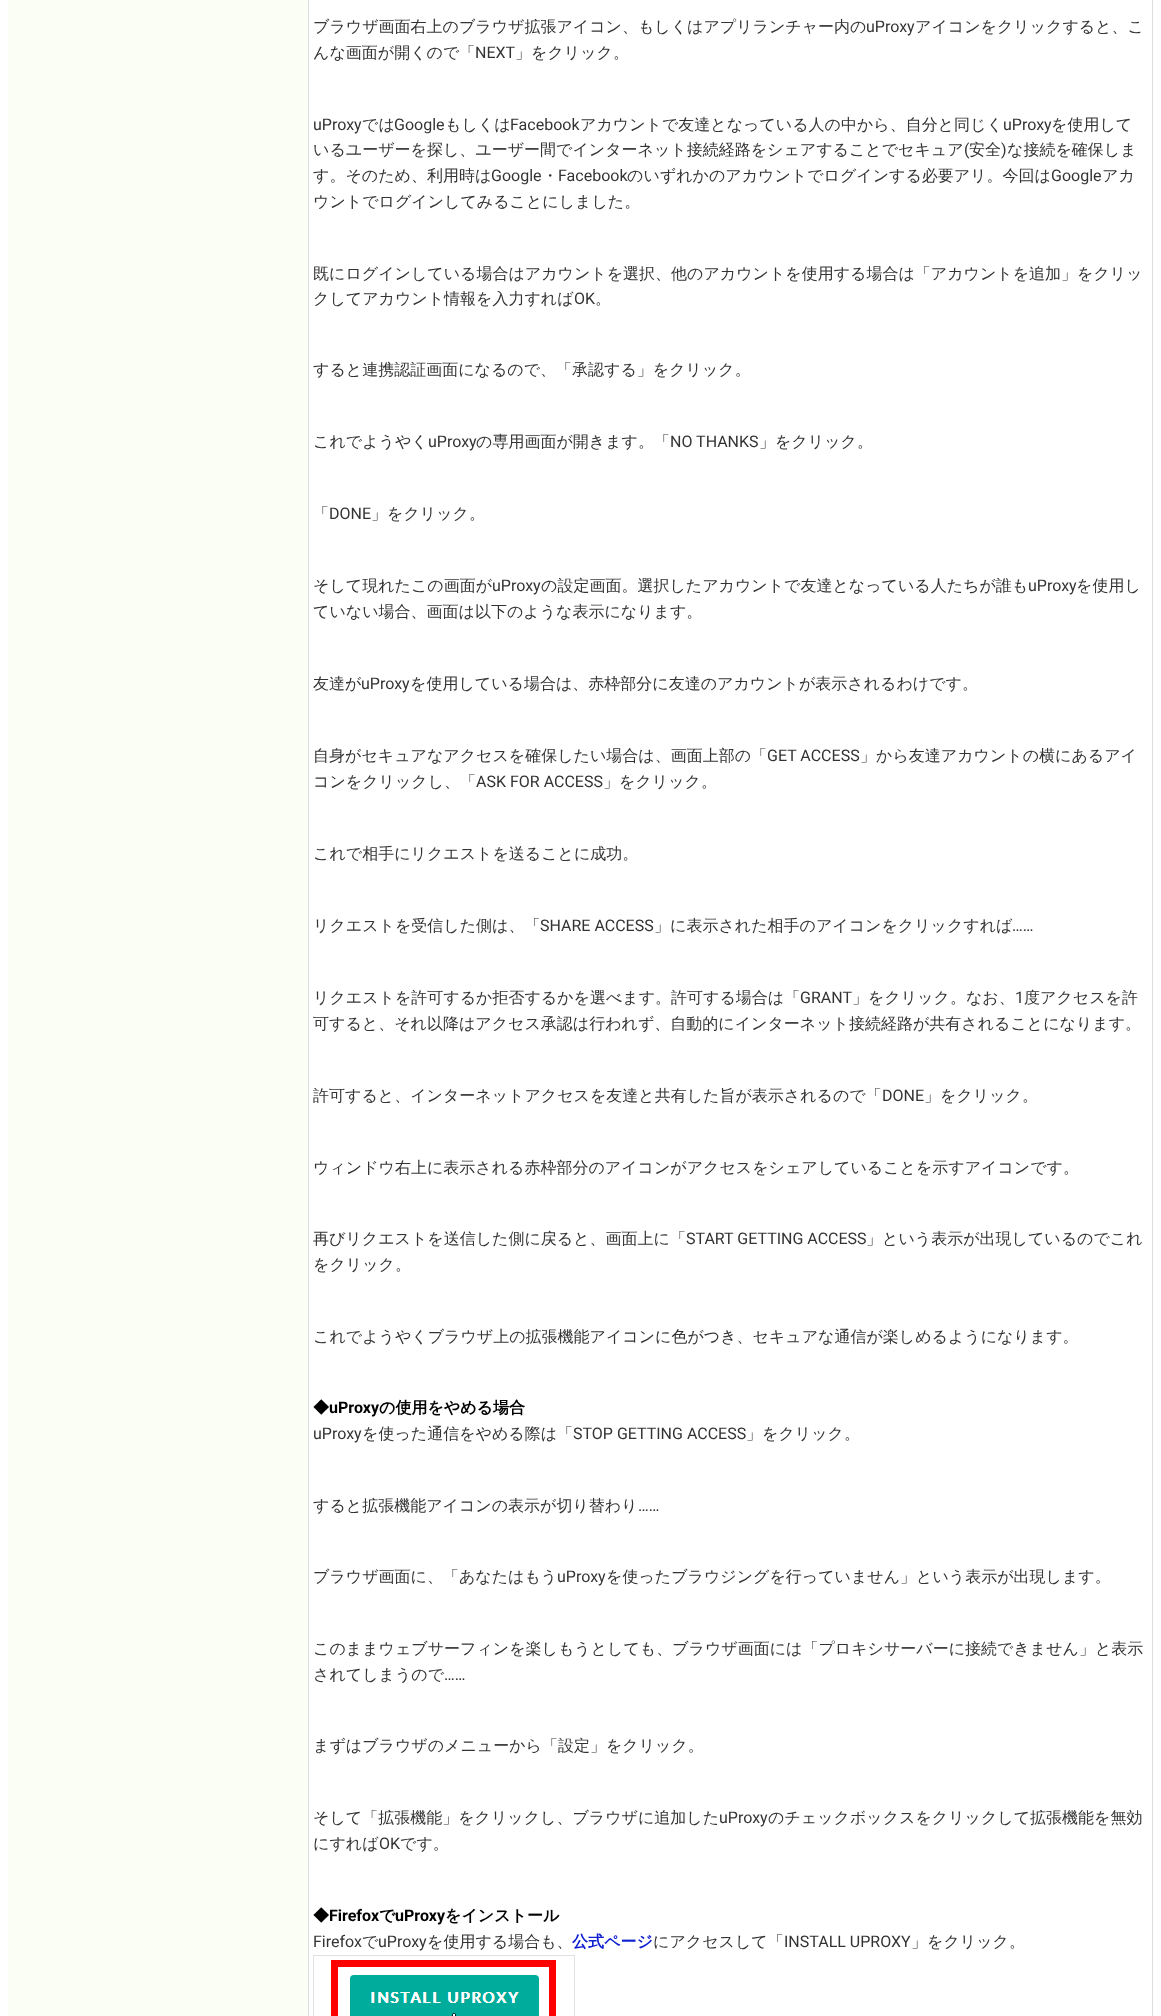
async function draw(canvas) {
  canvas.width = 1161
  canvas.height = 2016
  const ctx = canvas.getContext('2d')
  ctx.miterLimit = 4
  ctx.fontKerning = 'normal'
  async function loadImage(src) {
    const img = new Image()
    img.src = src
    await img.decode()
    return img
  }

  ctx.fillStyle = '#fff'
  ctx.fillRect(0, 0, 1161, 2016)
  ctx.fillStyle = '#fbfef4'
  ctx.fillRect(8, 0, 300, 2016)
  ctx.strokeStyle = '#ddd'
  ctx.strokeRect(308.5, -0.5, 844, 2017)
  ctx.font = '500 16px WenQuanYi Zen Hei'
  ctx.fillStyle = '#333'
  ctx.fillText('ブラウザ画面右上のブラウザ拡張アイコン、もしくはアプリランチャー内の', 313, 32)
  ctx.font = '16px Roboto'
  ctx.fillText('uProxy', 866, 32)
  ctx.font = '500 16px WenQuanYi Zen Hei'
  ctx.fillText('アイコンをクリックすると、こ', 915, 32)
  ctx.fillText('んな画面が開くので「', 313, 58)
  ctx.font = '16px Roboto'
  ctx.fillText('NEXT', 475, 58)
  ctx.font = '500 16px WenQuanYi Zen Hei'
  ctx.fillText('」をクリック。', 515, 58)
  ctx.font = '16px Roboto'
  ctx.fillText('uProxy', 313, 130)
  ctx.font = '500 16px WenQuanYi Zen Hei'
  ctx.fillText('では', 362, 130)
  ctx.font = '16px Roboto'
  ctx.fillText('Google', 394, 130)
  ctx.font = '500 16px WenQuanYi Zen Hei'
  ctx.fillText('もしくは', 445, 130)
  ctx.font = '16px Roboto'
  ctx.fillText('Facebook', 510, 130)
  ctx.font = '500 16px WenQuanYi Zen Hei'
  ctx.fillText('アカウントで友達となっている人の中から、自分と同じく', 580, 130)
  ctx.font = '16px Roboto'
  ctx.fillText('uProxy', 1003, 130)
  ctx.font = '500 16px WenQuanYi Zen Hei'
  ctx.fillText('を使用して', 1051, 130)
  ctx.fillText('いるユーザーを探し、ユーザー間でインターネット接続経路をシェアすることでセキュア', 313, 155)
  ctx.font = '16px Roboto'
  ctx.fillText('(', 964, 155)
  ctx.font = '500 16px WenQuanYi Zen Hei'
  ctx.fillText('安全', 969, 155)
  ctx.font = '16px Roboto'
  ctx.fillText(')', 1001, 155)
  ctx.font = '500 16px WenQuanYi Zen Hei'
  ctx.fillText('な接続を確保しま', 1007, 155)
  ctx.fillText('す。そのため、利用時は', 313, 181)
  ctx.font = '16px Roboto'
  ctx.fillText('Google', 491, 181)
  ctx.font = '500 16px WenQuanYi Zen Hei'
  ctx.fillText('・', 542, 181)
  ctx.font = '16px Roboto'
  ctx.fillText('Facebook', 558, 181)
  ctx.font = '500 16px WenQuanYi Zen Hei'
  ctx.fillText('のいずれかのアカウントでログインする必要アリ。今回は', 627, 181)
  ctx.font = '16px Roboto'
  ctx.fillText('Google', 1051, 181)
  ctx.font = '500 16px WenQuanYi Zen Hei'
  ctx.fillText('アカ', 1102, 181)
  ctx.fillText('ウントでログインしてみることにしました。', 313, 207)
  ctx.fillText('既にログインしている場合はアカウントを選択、他のアカウントを使用する場合は「アカウントを追加」をクリッ', 313, 279)
  ctx.fillText('クしてアカウント情報を入力すれば', 313, 304)
  ctx.font = '16px Roboto'
  ctx.fillText('OK', 574, 304)
  ctx.font = '500 16px WenQuanYi Zen Hei'
  ctx.fillText('。', 595, 304)
  ctx.fillText('すると連携認証画面になるので、「承認する」をクリック。', 313, 375)
  ctx.fillText('これでようやく', 313, 447)
  ctx.font = '16px Roboto'
  ctx.fillText('uProxy', 428, 447)
  ctx.font = '500 16px WenQuanYi Zen Hei'
  ctx.fillText('の専用画面が開きます。「', 476, 447)
  ctx.font = '16px Roboto'
  ctx.fillText('NO THANKS', 670, 447)
  ctx.font = '500 16px WenQuanYi Zen Hei'
  ctx.fillText('」をクリック。', 759, 447)
  ctx.fillText('「', 313, 519)
  ctx.font = '16px Roboto'
  ctx.fillText('DONE', 329, 519)
  ctx.font = '500 16px WenQuanYi Zen Hei'
  ctx.fillText('」をクリック。', 371, 519)
  ctx.fillText('そして現れたこの画面が', 313, 591)
  ctx.font = '16px Roboto'
  ctx.fillText('uProxy', 492, 591)
  ctx.font = '500 16px WenQuanYi Zen Hei'
  ctx.fillText('の設定画面。選択したアカウントで友達となっている人たちが誰も', 541, 591)
  ctx.font = '16px Roboto'
  ctx.fillText('uProxy', 1028, 591)
  ctx.font = '500 16px WenQuanYi Zen Hei'
  ctx.fillText('を使用し', 1076, 591)
  ctx.fillText('ていない場合、画面は以下のような表示になります。', 313, 617)
  ctx.fillText('友達が', 313, 689)
  ctx.font = '16px Roboto'
  ctx.fillText('uProxy', 361, 689)
  ctx.font = '500 16px WenQuanYi Zen Hei'
  ctx.fillText('を使用している場合は、赤枠部分に友達のアカウントが表示されるわけです。', 410, 689)
  ctx.fillText('自身がセキュアなアクセスを確保したい場合は、画面上部の「', 313, 761)
  ctx.font = '16px Roboto'
  ctx.fillText('GET ACCESS', 767, 761)
  ctx.font = '500 16px WenQuanYi Zen Hei'
  ctx.fillText('」から友達アカウントの横にあるアイ', 860, 761)
  ctx.fillText('コンをクリックし、「', 313, 787)
  ctx.font = '16px Roboto'
  ctx.fillText('ASK FOR ACCESS', 476, 787)
  ctx.font = '500 16px WenQuanYi Zen Hei'
  ctx.fillText('」をクリック。', 603, 787)
  ctx.fillText('これで相手にリクエストを送ることに成功。', 313, 859)
  ctx.fillText('リクエストを受信した側は、「', 313, 931)
  ctx.font = '16px Roboto'
  ctx.fillText('SHARE ACCESS', 540, 931)
  ctx.font = '500 16px WenQuanYi Zen Hei'
  ctx.fillText('」に表示された相手のアイコンをクリックすれば', 654, 931)
  ctx.font = '16px Roboto'
  ctx.fillText('……', 1012, 931)
  ctx.font = '500 16px WenQuanYi Zen Hei'
  ctx.fillText('リクエストを許可するか拒否するかを選べます。許可する場合は「', 313, 1003)
  ctx.font = '16px Roboto'
  ctx.fillText('GRANT', 800, 1003)
  ctx.font = '500 16px WenQuanYi Zen Hei'
  ctx.fillText('」をクリック。なお、', 852, 1003)
  ctx.font = '16px Roboto'
  ctx.fillText('1', 1015, 1003)
  ctx.font = '500 16px WenQuanYi Zen Hei'
  ctx.fillText('度アクセスを許', 1024, 1003)
  ctx.fillText('可すると、それ以降はアクセス承認は行われず、自動的にインターネット接続経路が共有されることになります。', 313, 1029)
  ctx.fillText('許可すると、インターネットアクセスを友達と共有した旨が表示されるので「', 313, 1101)
  ctx.font = '16px Roboto'
  ctx.fillText('DONE', 882, 1101)
  ctx.font = '500 16px WenQuanYi Zen Hei'
  ctx.fillText('」をクリック。', 924, 1101)
  ctx.fillText('ウィンドウ右上に表示される赤枠部分のアイコンがアクセスをシェアしていることを示すアイコンです。', 313, 1173)
  ctx.fillText('再びリクエストを送信した側に戻ると、画面上に「', 313, 1244)
  ctx.font = '16px Roboto'
  ctx.fillText('START GETTING ACCESS', 686, 1244)
  ctx.font = '500 16px WenQuanYi Zen Hei'
  ctx.fillText('」という表示が出現しているのでこれ', 866, 1244)
  ctx.fillText('をクリック。', 313, 1270)
  ctx.fillText('これでようやくブラウザ上の拡張機能アイコンに色がつき、セキュアな通信が楽しめるようになります。', 313, 1342)
  ctx.font = 'bold 16px WenQuanYi Zen Hei'
  ctx.fillStyle = '#000'
  ctx.fillText('◆', 313, 1413)
  ctx.font = 'bold 16px Roboto'
  ctx.fillText('uProxy', 329, 1413)
  ctx.font = 'bold 16px WenQuanYi Zen Hei'
  ctx.fillText('の使用をやめる場合', 379, 1413)
  ctx.font = '16px Roboto'
  ctx.fillStyle = '#333'
  ctx.fillText('uProxy', 313, 1439)
  ctx.font = '500 16px WenQuanYi Zen Hei'
  ctx.fillText('を使った通信をやめる際は「', 362, 1439)
  ctx.font = '16px Roboto'
  ctx.fillText('STOP GETTING ACCESS', 573, 1439)
  ctx.font = '500 16px WenQuanYi Zen Hei'
  ctx.fillText('」をクリック。', 746, 1439)
  ctx.fillText('すると拡張機能アイコンの表示が切り替わり', 313, 1511)
  ctx.font = '16px Roboto'
  ctx.fillText('……', 638, 1511)
  ctx.font = '500 16px WenQuanYi Zen Hei'
  ctx.fillText('ブラウザ画面に、「あなたはもう', 313, 1582)
  ctx.font = '16px Roboto'
  ctx.fillText('uProxy', 557, 1582)
  ctx.font = '500 16px WenQuanYi Zen Hei'
  ctx.fillText('を使ったブラウジングを行っていません」という表示が出現します。', 606, 1582)
  ctx.fillText('このままウェブサーフィンを楽しもうとしても、ブラウザ画面には「プロキシサーバーに接続できません」と表示', 313, 1654)
  ctx.fillText('されてしまうので', 313, 1680)
  ctx.font = '16px Roboto'
  ctx.fillText('……', 444, 1680)
  ctx.font = '500 16px WenQuanYi Zen Hei'
  ctx.fillText('まずはブラウザのメニューから「設定」をクリック。', 313, 1751)
  ctx.fillText('そして「拡張機能」をクリックし、ブラウザに追加した', 313, 1823)
  ctx.font = '16px Roboto'
  ctx.fillText('uProxy', 719, 1823)
  ctx.font = '500 16px WenQuanYi Zen Hei'
  ctx.fillText('のチェックボックスをクリックして拡張機能を無効', 768, 1823)
  ctx.fillText('にすれば', 313, 1849)
  ctx.font = '16px Roboto'
  ctx.fillText('OK', 379, 1849)
  ctx.font = '500 16px WenQuanYi Zen Hei'
  ctx.fillText('です。', 400, 1849)
  ctx.font = 'bold 16px WenQuanYi Zen Hei'
  ctx.fillStyle = '#000'
  ctx.fillText('◆', 313, 1921)
  ctx.font = 'bold 16px Roboto'
  ctx.fillText('Firefox', 329, 1921)
  ctx.font = 'bold 16px WenQuanYi Zen Hei'
  ctx.fillText('で', 379, 1921)
  ctx.font = 'bold 16px Roboto'
  ctx.fillText('uProxy', 395, 1921)
  ctx.font = 'bold 16px WenQuanYi Zen Hei'
  ctx.fillText('をインストール', 445, 1921)
  ctx.font = '16px Roboto'
  ctx.fillStyle = '#333'
  ctx.fillText('Firefox', 313, 1947)
  ctx.font = '500 16px WenQuanYi Zen Hei'
  ctx.fillText('で', 362, 1947)
  ctx.font = '16px Roboto'
  ctx.fillText('uProxy', 378, 1947)
  ctx.font = '500 16px WenQuanYi Zen Hei'
  ctx.fillText('を使用する場合も、', 427, 1947)
  ctx.font = 'bold 16px WenQuanYi Zen Hei'
  ctx.fillStyle = '#1020d0'
  ctx.fillText('公式ページ', 572, 1947)
  ctx.font = '500 16px WenQuanYi Zen Hei'
  ctx.fillStyle = '#333'
  ctx.fillText('にアクセスして「', 653, 1947)
  ctx.font = '16px Roboto'
  ctx.fillText('INSTALL UPROXY', 784, 1947)
  ctx.font = '500 16px WenQuanYi Zen Hei'
  ctx.fillText('」をクリック。', 911, 1947)
  ctx.strokeStyle = '#e1e1e1'
  ctx.strokeRect(313.5, 1955.5, 261, 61)
  ctx.drawImage(await loadImage('image0.png'), 331, 1960, 225, 56)
}

draw(document.querySelector('canvas'))
